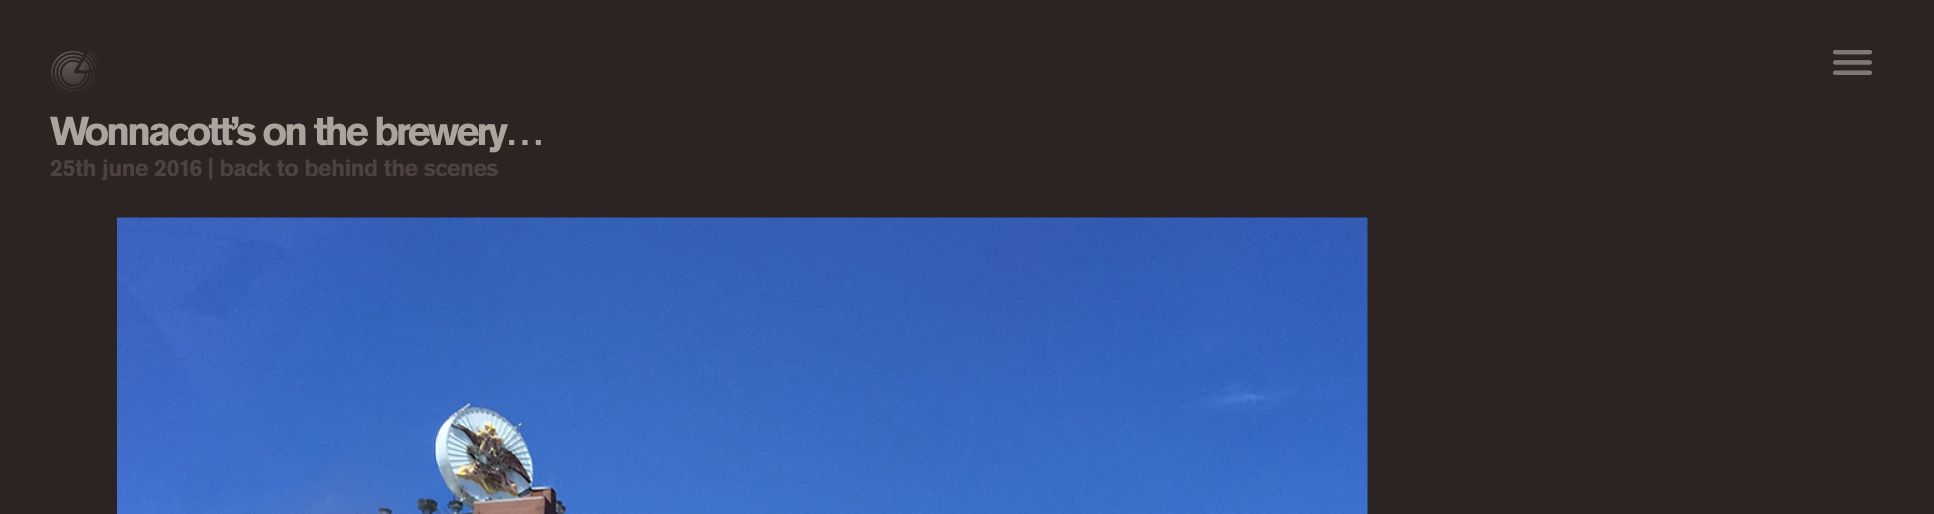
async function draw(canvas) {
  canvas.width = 1934
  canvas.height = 514
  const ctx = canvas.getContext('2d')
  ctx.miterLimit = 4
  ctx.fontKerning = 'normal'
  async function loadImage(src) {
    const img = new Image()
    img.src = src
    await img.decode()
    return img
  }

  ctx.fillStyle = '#2b2422'
  ctx.fillRect(0, 0, 1934, 514)
  ctx.drawImage(await loadImage('image0.png'), 51, 50, 49, 44)
  ctx.drawImage(await loadImage('image1.png'), 1833, 50, 40, 25)
  ctx.letterSpacing = '-3.2px'
  ctx.font = 'bold 40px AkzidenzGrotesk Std'
  ctx.fillStyle = '#aaa59c'
  ctx.fillText('Wonnacott’s on the brewery…', 50, 145)
  ctx.letterSpacing = '-0.7px'
  ctx.font = 'bold 23.4px AkzidenzGrotesk Std'
  ctx.fillStyle = '#4e423f'
  ctx.fillText('25th june 2016 | back to behind the scenes', 50, 176)
  ctx.drawImage(await loadImage('image2.png'), 117, 217, 1251, 297)
}

draw(document.querySelector('canvas'))
